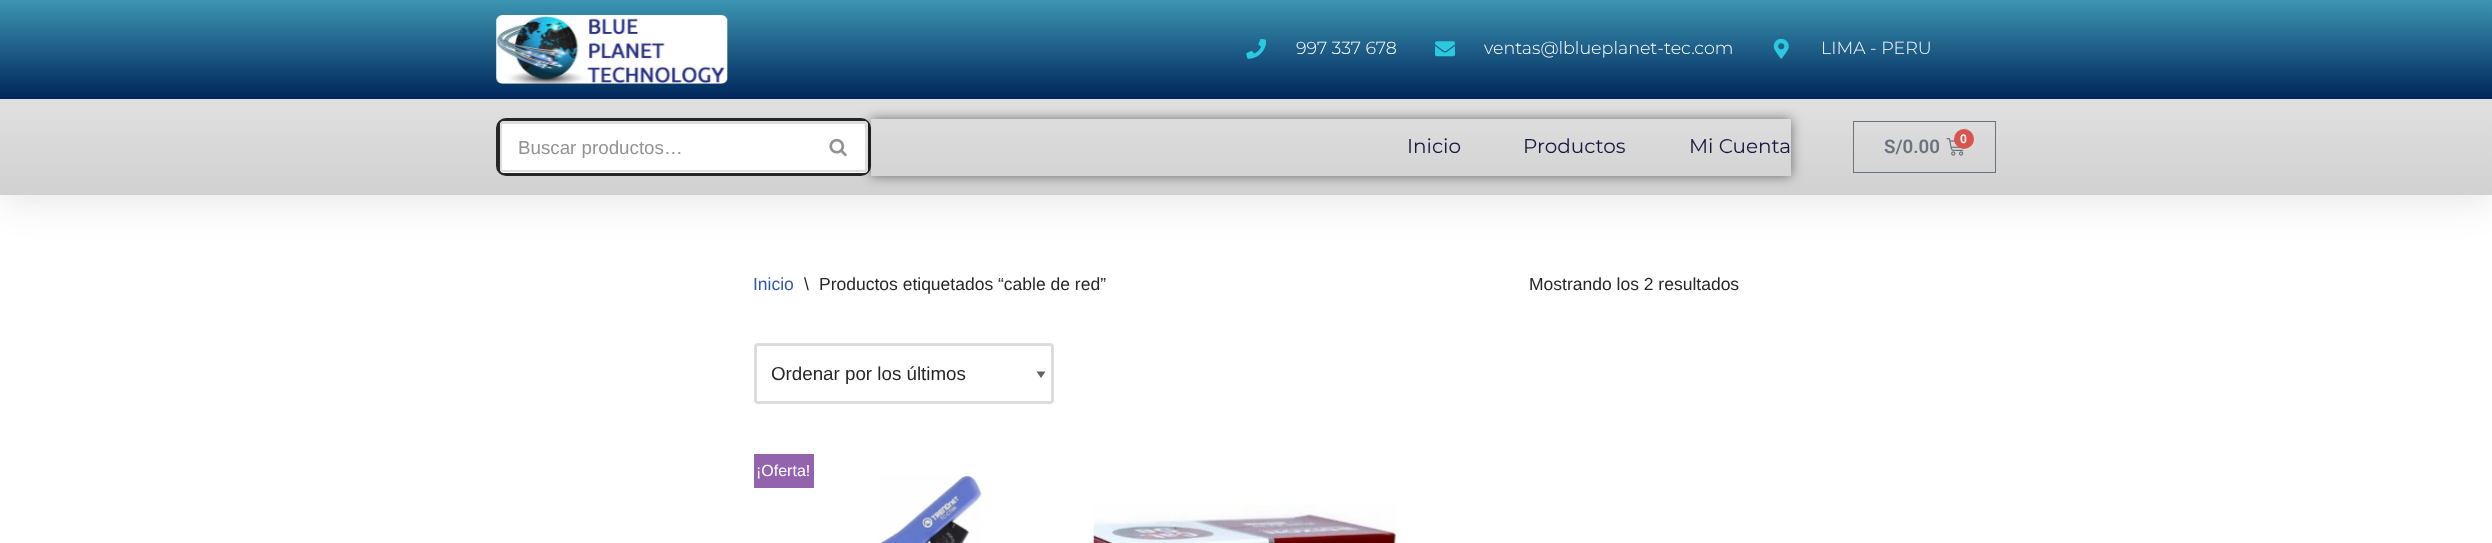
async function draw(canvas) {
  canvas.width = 2492
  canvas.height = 543
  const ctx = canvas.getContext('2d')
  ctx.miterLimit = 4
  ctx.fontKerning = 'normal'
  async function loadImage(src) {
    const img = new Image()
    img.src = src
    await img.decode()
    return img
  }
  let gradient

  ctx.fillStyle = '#fff'
  ctx.fillRect(0, 0, 2492, 543)
  ctx.fillStyle = '#0000001a'
  ctx.filter = 'blur(19px)'
  ctx.beginPath()
  ctx.rect(0, 6, 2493, 195)
  ctx.fill()
  ctx.filter = 'none'
  gradient = ctx.createLinearGradient(1246, 0, 1246, 99)
  gradient.addColorStop(0, '#3c95b2')
  gradient.addColorStop(1, '#00265b')
  ctx.fillStyle = gradient
  ctx.fillRect(0, 0, 2492, 99)
  ctx.drawImage(await loadImage('image0.png'), 496, 15, 232, 69)
  ctx.drawImage(await loadImage('image1.png'), 1246, 39, 20, 20)
  ctx.font = '300 17.5px Montserrat'
  ctx.fillStyle = '#fff'
  ctx.fillText('997 337 678', 1296, 54)
  ctx.drawImage(await loadImage('image2.png'), 1435, 41, 20, 16)
  ctx.fillText('ventas@lblueplanet-tec.com', 1484, 54)
  ctx.drawImage(await loadImage('image3.png'), 1773, 39, 16, 20)
  ctx.fillText('LIMA - PERU', 1821, 54)
  gradient = ctx.createLinearGradient(1246, 99, 1246, 195)
  gradient.addColorStop(0, '#e0e0e0')
  gradient.addColorStop(1, '#d1d1d1')
  ctx.fillStyle = gradient
  ctx.fillRect(0, 99, 2492, 96)
  ctx.beginPath()
  ctx.roundRect(498, 120, 371, 54, 8)
  ctx.strokeStyle = '#272626'
  ctx.lineWidth = 4
  ctx.stroke()
  ctx.fillStyle = '#fff'
  ctx.beginPath()
  ctx.roundRect(500, 121, 311, 52, [4, 0, 0, 4])
  ctx.fill()
  ctx.fillStyle = '#ddd'
  ctx.beginPath()
  ctx.moveTo(504, 121)
  ctx.lineTo(811, 121)
  ctx.lineTo(811, 172)
  ctx.lineTo(504, 172)
  ctx.bezierCurveTo(502, 172, 500, 171, 500, 169)
  ctx.lineTo(500, 125)
  ctx.bezierCurveTo(500, 123, 502, 121, 504, 121)
  ctx.closePath()
  ctx.moveTo(504, 124)
  ctx.lineTo(811, 124)
  ctx.lineTo(811, 170)
  ctx.lineTo(504, 170)
  ctx.bezierCurveTo(503, 170, 502, 169, 502, 169)
  ctx.lineTo(502, 125)
  ctx.bezierCurveTo(502, 124, 503, 124, 504, 124)
  ctx.closePath()
  ctx.fill('evenodd')
  ctx.font = '18.75px Liberation Sans'
  ctx.fillStyle = '#939393'
  ctx.fillText('Buscar productos…', 518, 154)
  ctx.save()
  ctx.beginPath()
  ctx.moveTo(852, 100)
  ctx.lineTo(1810, 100)
  ctx.lineTo(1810, 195)
  ctx.lineTo(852, 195)
  ctx.closePath()
  ctx.moveTo(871, 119)
  ctx.lineTo(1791, 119)
  ctx.lineTo(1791, 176)
  ctx.lineTo(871, 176)
  ctx.closePath()
  ctx.clip('evenodd')
  ctx.fillStyle = '#00000080'
  ctx.filter = 'blur(6px)'
  ctx.beginPath()
  ctx.rect(871, 119, 920, 57)
  ctx.fill()
  ctx.filter = 'none'
  ctx.restore()
  ctx.fillStyle = '#fff'
  ctx.beginPath()
  ctx.roundRect(811, 121, 57, 52, [0, 4, 4, 0])
  ctx.fill()
  ctx.fillStyle = '#ddd'
  ctx.beginPath()
  ctx.moveTo(811, 121)
  ctx.lineTo(864, 121)
  ctx.bezierCurveTo(866, 121, 868, 123, 868, 125)
  ctx.lineTo(868, 169)
  ctx.bezierCurveTo(868, 171, 866, 172, 864, 172)
  ctx.lineTo(811, 172)
  ctx.closePath()
  ctx.moveTo(811, 124)
  ctx.lineTo(864, 124)
  ctx.bezierCurveTo(864, 124, 865, 124, 865, 125)
  ctx.lineTo(865, 169)
  ctx.bezierCurveTo(865, 169, 864, 170, 864, 170)
  ctx.lineTo(811, 170)
  ctx.closePath()
  ctx.fill('evenodd')
  ctx.drawImage(await loadImage('image4.png'), 829, 138, 18, 18)
  ctx.font = '20px Montserrat'
  ctx.fillStyle = '#16163f'
  ctx.fillText('Inicio', 1407, 153)
  ctx.fillText('Productos', 1523, 153)
  ctx.fillText('Mi Cuenta', 1689, 153)
  ctx.strokeStyle = '#69727d'
  ctx.lineWidth = 1
  ctx.strokeRect(1853.5, 121.5, 142, 51)
  ctx.font = '600 18.75px Roboto'
  ctx.fillStyle = '#69727d'
  ctx.fillText('S/0.00', 1884, 153)
  ctx.drawImage(await loadImage('image5.png'), 1946, 138, 18, 18)
  ctx.fillStyle = '#d9534f'
  ctx.beginPath()
  ctx.arc(1964, 139, 10, 0, 2 * Math.PI)
  ctx.fill()
  ctx.font = '600 12px Roboto'
  ctx.fillStyle = '#fff'
  ctx.fillText('0', 1960, 143)
  ctx.font = '17.5px Liberation Sans'
  ctx.fillStyle = '#2f5aae'
  ctx.fillText('Inicio', 753, 290)
  ctx.fillStyle = '#272626'
  ctx.fillText('\\', 804, 290)
  ctx.fillText('Productos etiquetados “cable de red”', 819, 290)
  ctx.fillText('Mostrando los 2 resultados', 1529, 290)
  ctx.fillStyle = '#626262'
  ctx.beginPath()
  ctx.moveTo(1045.5, 371.5)
  ctx.lineTo(1041, 378)
  ctx.lineTo(1036.5, 371.5)
  ctx.closePath()
  ctx.fill()
  ctx.beginPath()
  ctx.roundRect(755.5, 344.5, 297, 58, 2.5)
  ctx.strokeStyle = '#ddd'
  ctx.lineWidth = 3
  ctx.stroke()
  ctx.font = '18.75px Liberation Sans'
  ctx.fillStyle = '#272626'
  ctx.fillText('Ordenar por los últimos', 771, 380)
  ctx.fillStyle = '#9463ae'
  ctx.fillRect(754, 454, 60, 34)
  ctx.font = '16px Liberation Sans'
  ctx.fillStyle = '#fff'
  ctx.fillText('¡Oferta!', 756, 476)
  ctx.drawImage(await loadImage('image6.png'), 879, 475, 103, 68)
  ctx.drawImage(await loadImage('image7.png'), 1093, 503, 305, 40)
}

draw(document.querySelector('canvas'))
